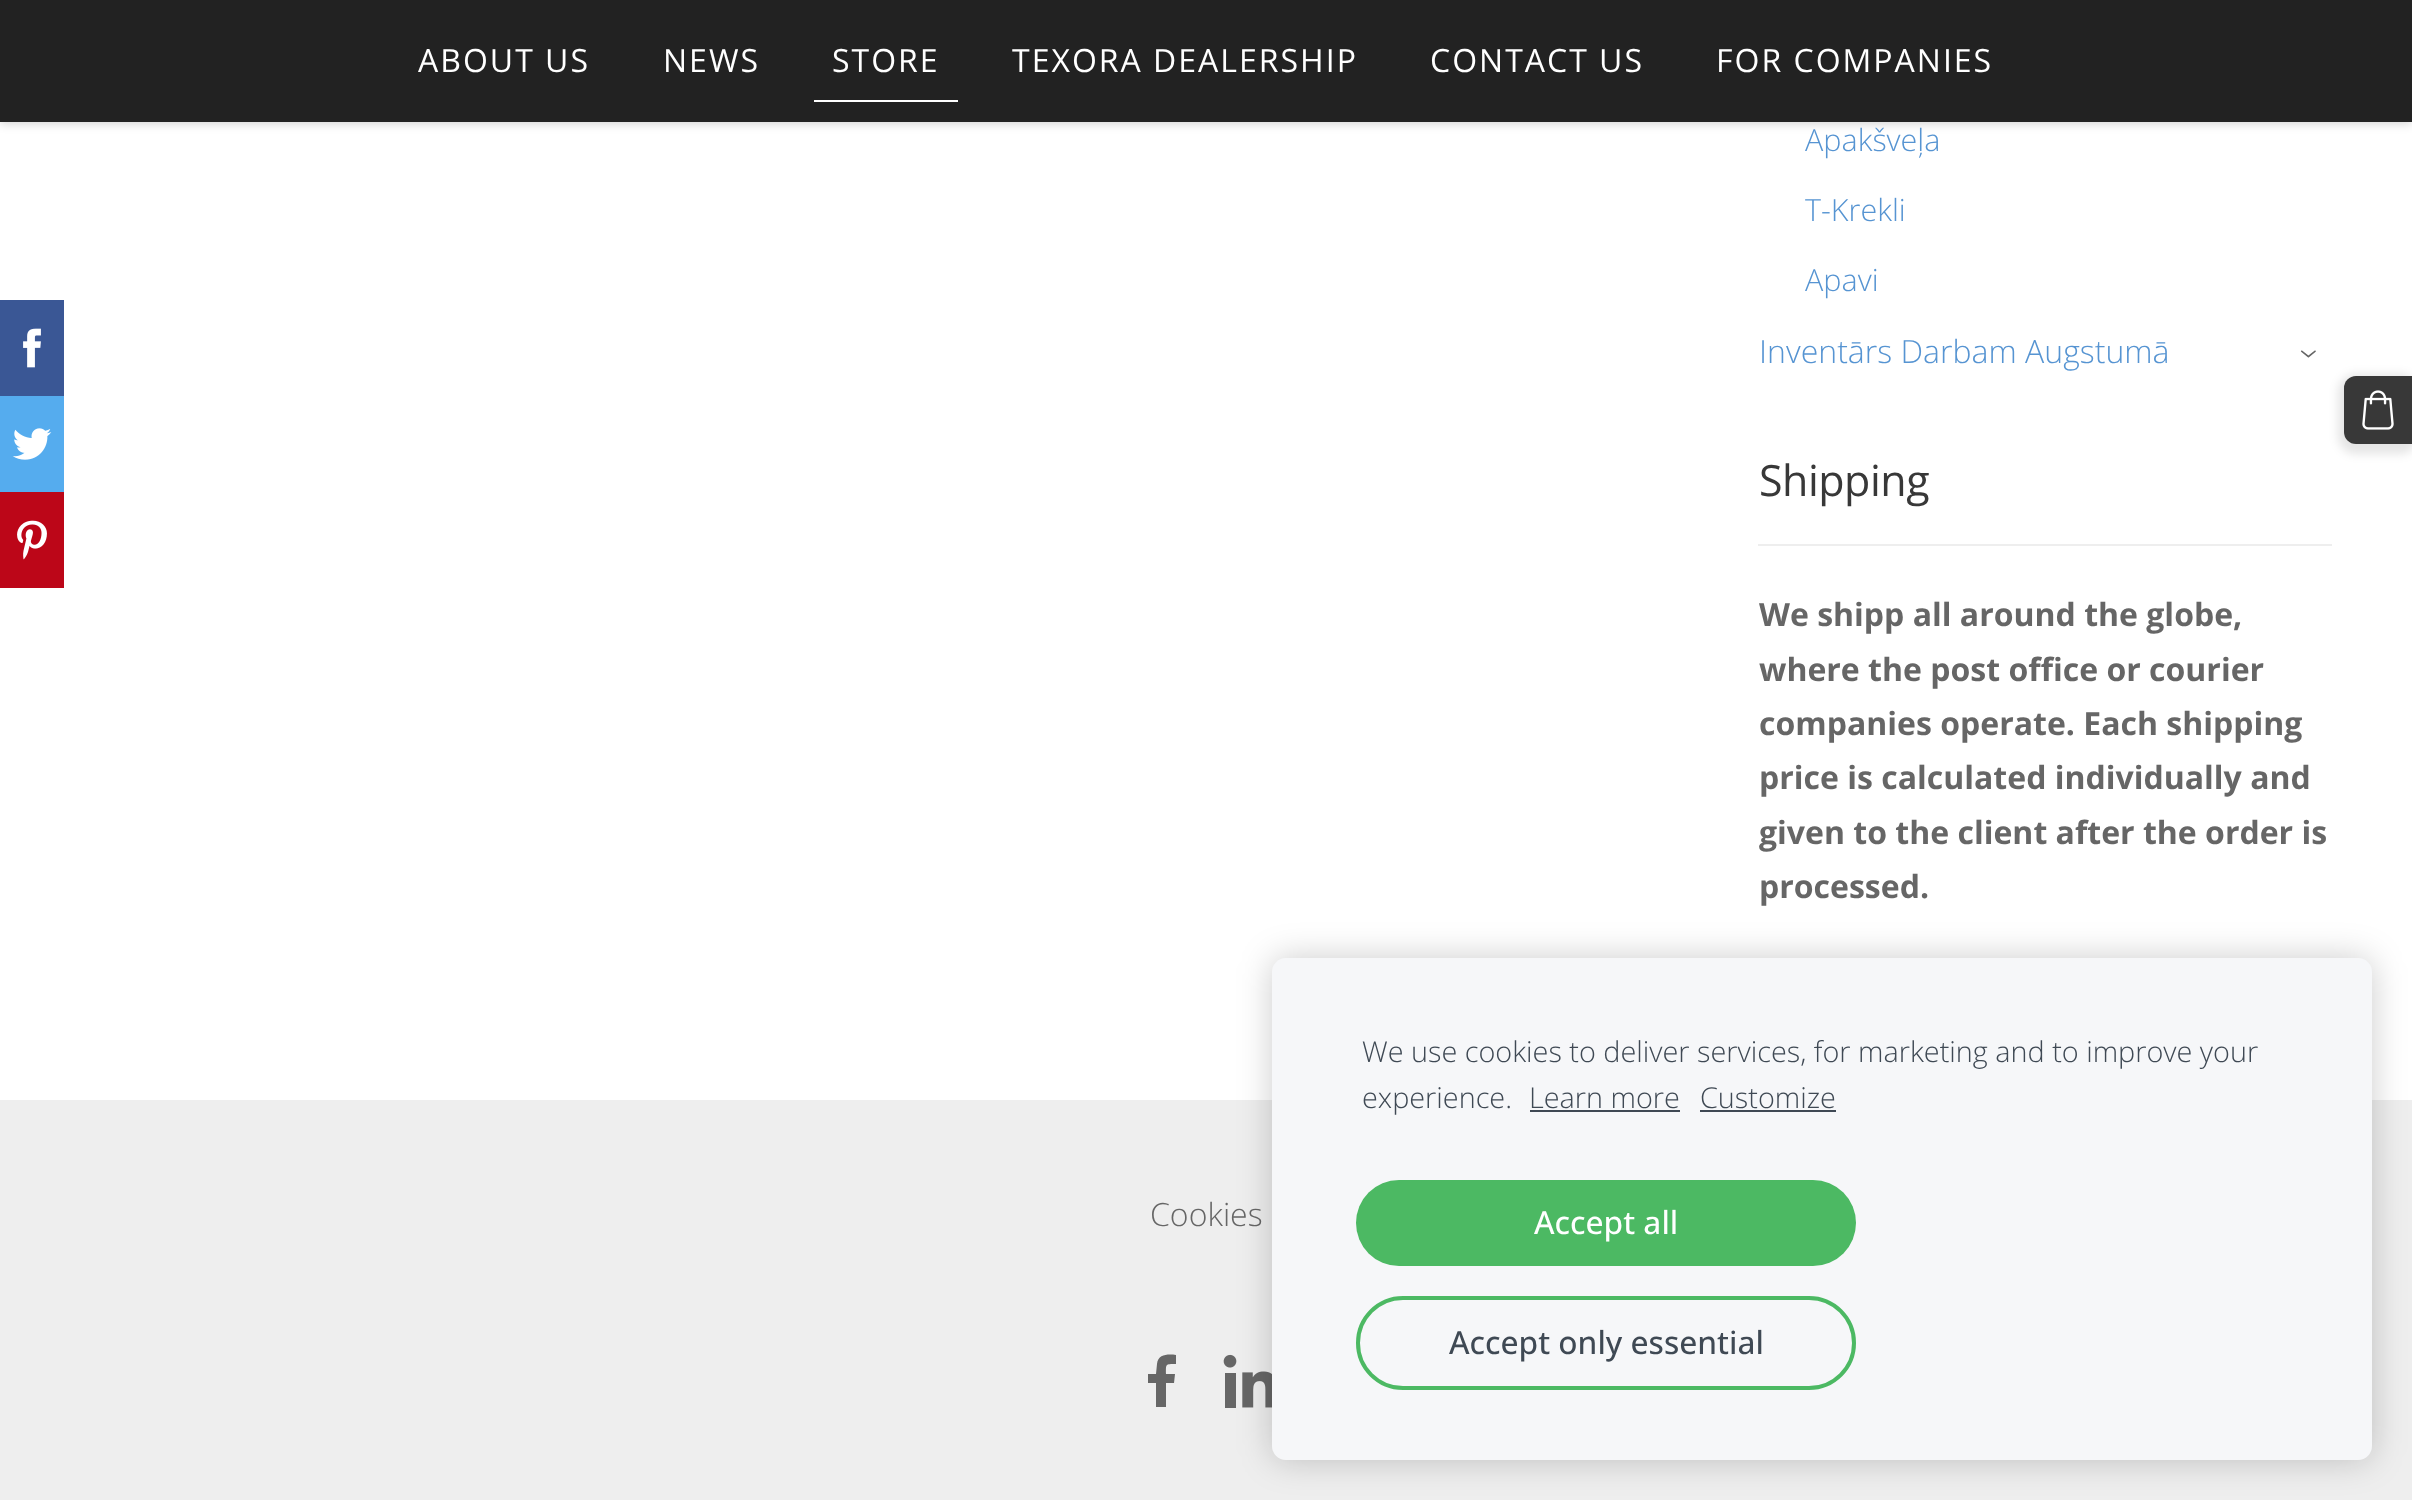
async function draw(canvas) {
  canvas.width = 2412
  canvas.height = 1500
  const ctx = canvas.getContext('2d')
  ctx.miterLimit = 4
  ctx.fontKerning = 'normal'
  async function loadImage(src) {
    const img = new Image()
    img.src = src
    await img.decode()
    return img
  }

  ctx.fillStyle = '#eee'
  ctx.fillRect(0, 0, 2412, 1500)
  ctx.fillStyle = '#fff'
  ctx.fillRect(0, 122, 2412, 978)
  ctx.fillStyle = '#3a5795'
  ctx.fillRect(0, 300, 64, 96)
  ctx.drawImage(await loadImage('image0.png'), 23, 328, 18, 40)
  ctx.fillStyle = '#55acee'
  ctx.fillRect(0, 396, 64, 96)
  ctx.drawImage(await loadImage('image1.png'), 12, 428, 40, 32)
  ctx.fillStyle = '#bc0618'
  ctx.fillRect(0, 492, 64, 96)
  ctx.drawImage(await loadImage('image2.png'), 17, 520, 30, 40)
  ctx.fillStyle = '#0000002b'
  ctx.filter = 'blur(5px)'
  ctx.beginPath()
  ctx.rect(0, 2, 2412, 122)
  ctx.fill()
  ctx.filter = 'none'
  ctx.fillStyle = '#222'
  ctx.fillRect(0, 0, 2412, 122)
  ctx.letterSpacing = '2px'
  ctx.font = '32px Open Sans'
  ctx.fillStyle = '#fff'
  ctx.fillText('ABOUT US', 418, 72)
  ctx.fillText('NEWS', 663, 72)
  ctx.fillRect(814, 100, 144, 2)
  ctx.fillText('STORE', 832, 72)
  ctx.fillText('TEXORA DEALERSHIP', 1012, 72)
  ctx.fillText('CONTACT US', 1430, 72)
  ctx.fillText('FOR COMPANIES', 1716, 72)
  ctx.letterSpacing = '0px'
  ctx.font = '300 30.5px Open Sans'
  ctx.fillStyle = '#5694d2'
  ctx.fillText('Apakšveļa', 1805, 151)
  ctx.fillText('T-Krekli', 1805, 221)
  ctx.fillText('Apavi', 1805, 291)
  ctx.font = '300 32px Open Sans'
  ctx.fillText('Inventārs Darbam Augstumā', 1759, 363)
  ctx.font = '300 38px Open Sans'
  ctx.fillStyle = '#666'
  ctx.save()
  ctx.translate(2298, 349)
  ctx.rotate(90 * Math.PI / 180)
  ctx.fillText('›', 0, 0)
  ctx.restore()
  ctx.fillStyle = '#eee'
  ctx.fillRect(1758, 544, 574, 2)
  ctx.letterSpacing = '-0.5px'
  ctx.font = '43px Open Sans'
  ctx.fillStyle = '#383838'
  ctx.fillText('Shipping', 1759, 496)
  ctx.letterSpacing = '0px'
  ctx.font = 'bold 32px Open Sans'
  ctx.fillStyle = '#666'
  ctx.fillText('We shipp all around the globe,', 1759, 626)
  ctx.fillText('where the post office or courier', 1759, 681)
  ctx.fillText('companies operate. Each shipping', 1759, 735)
  ctx.fillText('price is calculated individually and', 1759, 789)
  ctx.fillText('given to the client after the order is', 1759, 844)
  ctx.fillText('processed.', 1759, 898)
  ctx.fillStyle = '#0000001a'
  ctx.filter = 'blur(5px)'
  ctx.beginPath()
  ctx.roundRect(2338, 374, 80, 80, 18)
  ctx.fill()
  ctx.filter = 'none'
  ctx.fillStyle = '#383838'
  ctx.beginPath()
  ctx.roundRect(2344, 376, 68, 68, [12, 0, 0, 12])
  ctx.fill()
  ctx.drawImage(await loadImage('image3.png'), 2362, 390, 32, 40)
  ctx.font = '300 32px Open Sans'
  ctx.fillStyle = '#666'
  ctx.fillText('Cookies', 1150, 1226)
  ctx.beginPath()
  ctx.moveTo(1166, 1407)
  ctx.lineTo(1166, 1383)
  ctx.lineTo(1174, 1383)
  ctx.lineTo(1175, 1374)
  ctx.lineTo(1166, 1374)
  ctx.bezierCurveTo(1166, 1364, 1165, 1364, 1176, 1364)
  ctx.lineTo(1176, 1355)
  ctx.bezierCurveTo(1168, 1354, 1158, 1354, 1157, 1364)
  ctx.lineTo(1156, 1374)
  ctx.lineTo(1148, 1374)
  ctx.lineTo(1148, 1383)
  ctx.lineTo(1156, 1383)
  ctx.lineTo(1156, 1407)
  ctx.closePath()
  ctx.fill()
  ctx.drawImage(await loadImage('image4.png'), 1223, 1354, 49, 54)
  ctx.fillStyle = '#00000033'
  ctx.filter = 'blur(17px)'
  ctx.beginPath()
  ctx.roundRect(1272, 958, 1100, 502, 14)
  ctx.fill()
  ctx.filter = 'none'
  ctx.fillStyle = '#f6f7f9'
  ctx.beginPath()
  ctx.roundRect(1272, 958, 1100, 502, 14)
  ctx.fill()
  ctx.font = '300 28.8px Open Sans'
  ctx.fillStyle = '#3f4954'
  ctx.fillText('We use cookies to deliver services, for marketing and to improve your', 1362, 1062)
  ctx.fillText('experience.', 1362, 1108)
  ctx.fillText('Learn more', 1529, 1108)
  ctx.fillRect(1530, 1110, 150, 2)
  ctx.fillText('Customize', 1700, 1108)
  ctx.fillRect(1700, 1110, 136, 2)
  ctx.fillStyle = '#4cb963'
  ctx.beginPath()
  ctx.roundRect(1356, 1180, 500, 86, 43)
  ctx.fill()
  ctx.font = '500 31.75px Open Sans'
  ctx.fillStyle = '#fff'
  ctx.fillText('Accept all', 1534, 1234)
  ctx.beginPath()
  ctx.roundRect(1358, 1298, 496, 90, 45)
  ctx.strokeStyle = '#4cb963'
  ctx.lineWidth = 4
  ctx.stroke()
  ctx.fillStyle = '#3f4954'
  ctx.fillText('Accept only essential', 1449, 1354)
}

draw(document.querySelector('canvas'))
